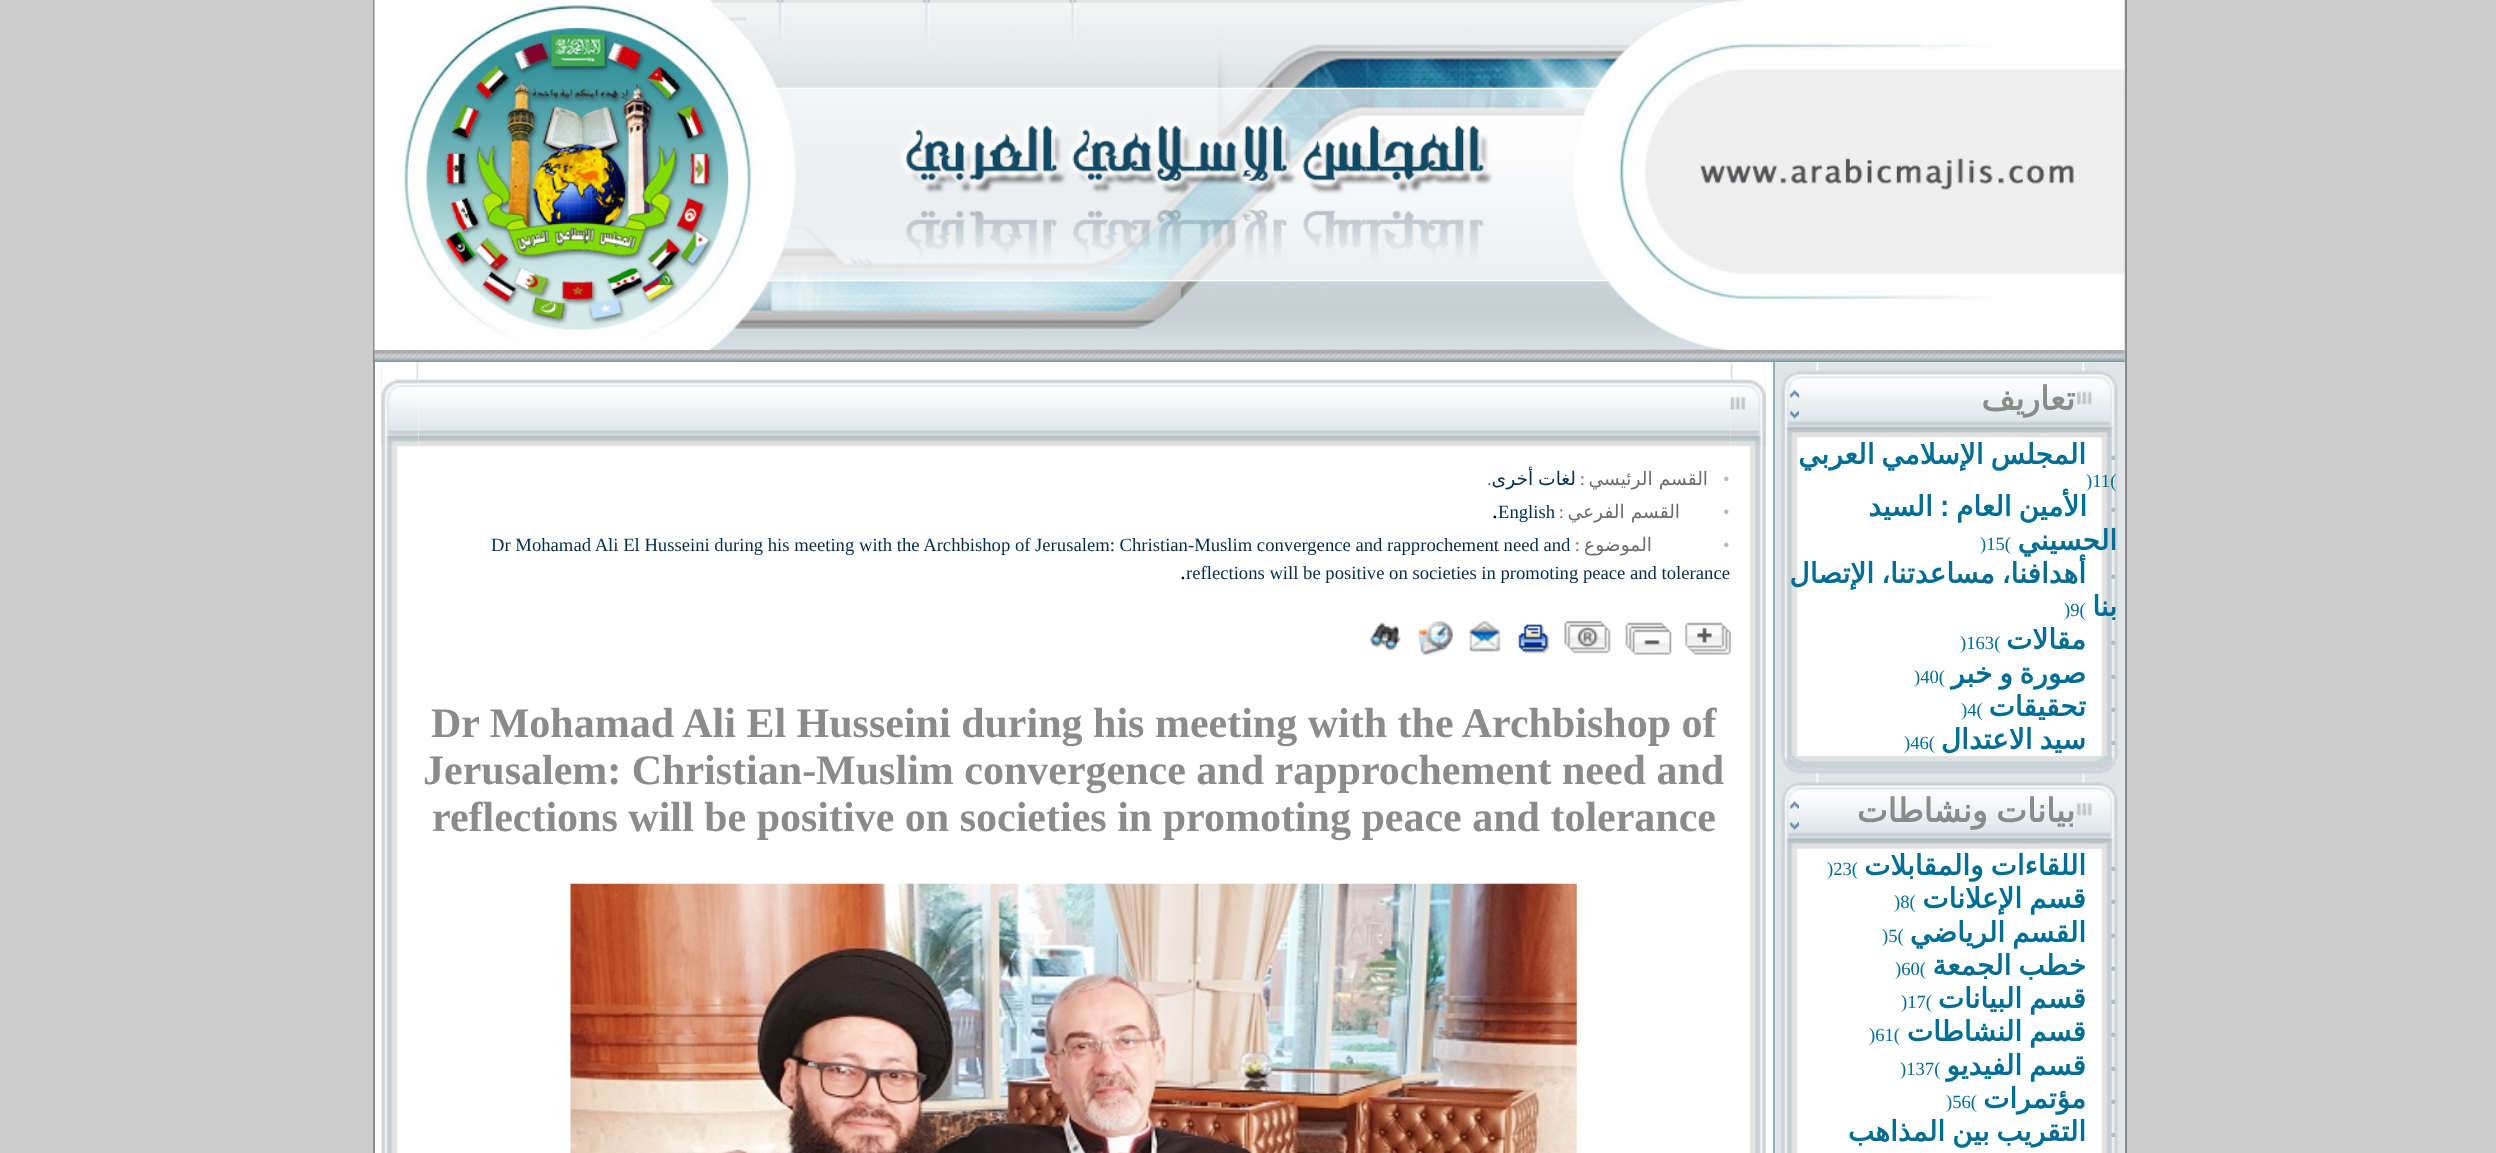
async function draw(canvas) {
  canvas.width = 2496
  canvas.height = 1153
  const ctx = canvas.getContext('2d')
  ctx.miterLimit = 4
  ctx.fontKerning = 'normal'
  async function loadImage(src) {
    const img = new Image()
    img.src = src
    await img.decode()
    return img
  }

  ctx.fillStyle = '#ccc'
  ctx.fillRect(0, 0, 2496, 1153)
  ctx.fillStyle = '#8c8b8b'
  ctx.fillRect(2125, 0, 2, 1153)
  ctx.fillRect(373, 0, 2, 1153)
  ctx.drawImage(await loadImage('image0.png'), 374, 0, 1751, 350)
  ctx.drawImage(await loadImage('image1.png'), 374, 350, 1751, 13)
  ctx.fillStyle = '#fff'
  ctx.fillRect(375, 362, 1398, 791)
  ctx.drawImage(await loadImage('image4.png'), 418, 379, 1313, 68)
  ctx.drawImage(await loadImage('image2.png'), 381, 362, 38, 85)
  ctx.drawImage(await loadImage('image7.png'), 381, 446, 17, 707)
  ctx.drawImage(await loadImage('image3.png'), 381, 362, 38, 85)
  ctx.drawImage(await loadImage('image5.png'), 1749, 362, 17, 85)
  ctx.drawImage(await loadImage('image16.png'), 1749, 446, 17, 707)
  ctx.drawImage(await loadImage('image6.png'), 1730, 362, 36, 85)
  ctx.wordSpacing = '-1px'
  ctx.direction = 'rtl'
  ctx.font = '18.67px DejaVu Sans'
  ctx.fillStyle = '#002d4c'
  ctx.fillText('لغات أخرى', 1576, 485)
  ctx.wordSpacing = '0px'
  ctx.font = '18.67px Liberation Serif'
  ctx.fillStyle = '#6c6c6c'
  ctx.fillText(':', 1585, 485)
  ctx.font = '18.67px DejaVu Sans'
  ctx.fillText('القسم الرئيسي', 1708, 485)
  ctx.direction = 'ltr'
  ctx.font = '18.67px Liberation Serif'
  ctx.fillStyle = '#afbec2'
  ctx.fillText('•', 1723, 485)
  ctx.fillStyle = '#6c6c6c'
  ctx.fillText('.', 1487, 485)
  ctx.fillStyle = '#002d4c'
  ctx.fillText('English', 1498, 518)
  ctx.direction = 'rtl'
  ctx.fillStyle = '#6c6c6c'
  ctx.fillText(':', 1564, 518)
  ctx.font = '18.67px DejaVu Sans'
  ctx.fillText('القسم الفرعي', 1680, 518)
  ctx.direction = 'ltr'
  ctx.font = '18.67px Liberation Serif'
  ctx.fillStyle = '#afbec2'
  ctx.fillText('•', 1723, 518)
  ctx.font = '23px Liberation Serif'
  ctx.fillStyle = '#000'
  ctx.fillText('.', 1492, 518)
  ctx.font = '18.67px Liberation Serif'
  ctx.fillStyle = '#002d4c'
  ctx.fillText('Dr Mohamad Ali El Husseini during his meeting with the Archbishop of Jerusalem: Christian-Muslim convergence and rapprochement need and', 491, 551)
  ctx.direction = 'rtl'
  ctx.fillStyle = '#6c6c6c'
  ctx.fillText(':', 1580, 551)
  ctx.font = '18.67px DejaVu Sans'
  ctx.fillText('الموضوع', 1652, 551)
  ctx.direction = 'ltr'
  ctx.font = '18.67px Liberation Serif'
  ctx.fillStyle = '#afbec2'
  ctx.fillText('•', 1723, 551)
  ctx.font = '23px Liberation Serif'
  ctx.fillStyle = '#000'
  ctx.fillText('.', 1180, 579)
  ctx.font = '18.67px Liberation Serif'
  ctx.fillStyle = '#002d4c'
  ctx.fillText('reflections will be positive on societies in promoting peace and tolerance', 1186, 579)
  ctx.drawImage(await loadImage('image8.png'), 1369, 622, 32, 29)
  ctx.drawImage(await loadImage('image9.png'), 1418, 621, 35, 34)
  ctx.drawImage(await loadImage('image10.png'), 1469, 621, 32, 31)
  ctx.drawImage(await loadImage('image11.png'), 1518, 624, 32, 30)
  ctx.drawImage(await loadImage('image12.png'), 1564, 620, 47, 34)
  ctx.drawImage(await loadImage('image13.png'), 1625, 622, 47, 33)
  ctx.drawImage(await loadImage('image14.png'), 1684, 622, 47, 33)
  ctx.font = 'bold 42px Liberation Serif'
  ctx.fillStyle = '#8c8b8b'
  ctx.fillText('Dr Mohamad Ali El Husseini during his meeting with the Archbishop of', 431, 737)
  ctx.fillText('Jerusalem: Christian-Muslim convergence and rapprochement need and', 423, 784)
  ctx.fillText('reflections will be positive on societies in promoting peace and tolerance', 432, 831)
  ctx.drawImage(await loadImage('image15.png'), 570, 883, 1007, 270)
  ctx.fillStyle = '#92b1c0'
  ctx.fillRect(1773, 362, 2, 791)
  ctx.fillStyle = '#e0e5e8'
  ctx.fillRect(1775, 362, 350, 791)
  ctx.drawImage(await loadImage('image17.png'), 1781, 362, 337, 76)
  ctx.drawImage(await loadImage('image18.png'), 1789, 389, 10, 30)
  ctx.direction = 'rtl'
  ctx.font = 'bold 32.75px DejaVu Sans'
  ctx.fillStyle = '#8c8b8b'
  ctx.fillText('تعاريف', 2075, 410)
  ctx.drawImage(await loadImage('image19.png'), 1781, 437, 337, 319)
  ctx.wordSpacing = '-2px'
  ctx.font = 'bold 28px DejaVu Sans'
  ctx.fillStyle = '#006d94'
  ctx.fillText('المجلس الإسلامي العربي', 2086, 464)
  ctx.wordSpacing = '0px'
  ctx.direction = 'ltr'
  ctx.font = '18.67px Liberation Serif'
  ctx.fillStyle = '#afbec2'
  ctx.fillText('•', 2110, 464)
  ctx.fillStyle = '#006d94'
  ctx.fillText(')11(', 2086, 487)
  ctx.wordSpacing = '-2px'
  ctx.direction = 'rtl'
  ctx.font = 'bold 28px DejaVu Sans'
  ctx.fillText('الأمين العام : السيد', 2087, 516)
  ctx.wordSpacing = '0px'
  ctx.direction = 'ltr'
  ctx.font = '18.67px Liberation Serif'
  ctx.fillStyle = '#afbec2'
  ctx.fillText('•', 2110, 516)
  ctx.fillStyle = '#006d94'
  ctx.fillText(')15(', 1980, 550)
  ctx.direction = 'rtl'
  ctx.font = 'bold 28px DejaVu Sans'
  ctx.fillText('الحسيني', 2117, 550)
  ctx.wordSpacing = '-2px'
  ctx.fillText('أهدافنا، مساعدتنا، الإتصال', 2086, 583)
  ctx.wordSpacing = '0px'
  ctx.direction = 'ltr'
  ctx.font = '18.67px Liberation Serif'
  ctx.fillStyle = '#afbec2'
  ctx.fillText('•', 2110, 583)
  ctx.fillStyle = '#006d94'
  ctx.fillText(')9(', 2064, 616)
  ctx.direction = 'rtl'
  ctx.font = 'bold 28px DejaVu Sans'
  ctx.fillText('بنا', 2117, 616)
  ctx.direction = 'ltr'
  ctx.font = '18.67px Liberation Serif'
  ctx.fillText(')163(', 1960, 649)
  ctx.direction = 'rtl'
  ctx.font = 'bold 28px DejaVu Sans'
  ctx.fillText('مقالات', 2086, 649)
  ctx.direction = 'ltr'
  ctx.font = '18.67px Liberation Serif'
  ctx.fillStyle = '#afbec2'
  ctx.fillText('•', 2110, 649)
  ctx.fillStyle = '#006d94'
  ctx.fillText(')40(', 1914, 683)
  ctx.wordSpacing = '-2px'
  ctx.direction = 'rtl'
  ctx.font = 'bold 28px DejaVu Sans'
  ctx.fillText('صورة و خبر', 2086, 683)
  ctx.wordSpacing = '0px'
  ctx.direction = 'ltr'
  ctx.font = '18.67px Liberation Serif'
  ctx.fillStyle = '#afbec2'
  ctx.fillText('•', 2110, 683)
  ctx.fillStyle = '#006d94'
  ctx.fillText(')4(', 1961, 716)
  ctx.direction = 'rtl'
  ctx.font = 'bold 28px DejaVu Sans'
  ctx.fillText('تحقيقات', 2086, 716)
  ctx.direction = 'ltr'
  ctx.font = '18.67px Liberation Serif'
  ctx.fillStyle = '#afbec2'
  ctx.fillText('•', 2110, 716)
  ctx.fillStyle = '#006d94'
  ctx.fillText(')46(', 1904, 749)
  ctx.wordSpacing = '-2px'
  ctx.direction = 'rtl'
  ctx.font = 'bold 28px DejaVu Sans'
  ctx.fillText('سيد الاعتدال', 2086, 749)
  ctx.wordSpacing = '0px'
  ctx.direction = 'ltr'
  ctx.font = '18.67px Liberation Serif'
  ctx.fillStyle = '#afbec2'
  ctx.fillText('•', 2110, 749)
  ctx.drawImage(await loadImage('image21.png'), 1781, 773, 337, 76)
  ctx.drawImage(await loadImage('image20.png'), 1781, 756, 337, 18)
  ctx.drawImage(await loadImage('image22.png'), 1789, 801, 10, 29)
  ctx.wordSpacing = '-2px'
  ctx.direction = 'rtl'
  ctx.font = 'bold 32.75px DejaVu Sans'
  ctx.fillStyle = '#8c8b8b'
  ctx.fillText('بيانات ونشاطات', 2075, 822)
  ctx.drawImage(await loadImage('image23.png'), 1781, 848, 337, 305)
  ctx.wordSpacing = '0px'
  ctx.direction = 'ltr'
  ctx.font = '18.67px Liberation Serif'
  ctx.fillStyle = '#006d94'
  ctx.fillText(')23(', 1827, 875)
  ctx.wordSpacing = '-2px'
  ctx.direction = 'rtl'
  ctx.font = 'bold 28px DejaVu Sans'
  ctx.fillText('اللقاءات والمقابلات', 2086, 875)
  ctx.wordSpacing = '0px'
  ctx.direction = 'ltr'
  ctx.font = '18.67px Liberation Serif'
  ctx.fillStyle = '#afbec2'
  ctx.fillText('•', 2110, 875)
  ctx.fillStyle = '#006d94'
  ctx.fillText(')8(', 1894, 908)
  ctx.wordSpacing = '-2px'
  ctx.direction = 'rtl'
  ctx.font = 'bold 28px DejaVu Sans'
  ctx.fillText('قسم الإعلانات', 2086, 908)
  ctx.wordSpacing = '0px'
  ctx.direction = 'ltr'
  ctx.font = '18.67px Liberation Serif'
  ctx.fillStyle = '#afbec2'
  ctx.fillText('•', 2110, 908)
  ctx.fillStyle = '#006d94'
  ctx.fillText(')5(', 1882, 942)
  ctx.wordSpacing = '-2px'
  ctx.direction = 'rtl'
  ctx.font = 'bold 28px DejaVu Sans'
  ctx.fillText('القسم الرياضي', 2086, 942)
  ctx.wordSpacing = '0px'
  ctx.direction = 'ltr'
  ctx.font = '18.67px Liberation Serif'
  ctx.fillStyle = '#afbec2'
  ctx.fillText('•', 2110, 942)
  ctx.fillStyle = '#006d94'
  ctx.fillText(')60(', 1895, 975)
  ctx.wordSpacing = '-2px'
  ctx.direction = 'rtl'
  ctx.font = 'bold 28px DejaVu Sans'
  ctx.fillText('خطب الجمعة', 2086, 975)
  ctx.wordSpacing = '0px'
  ctx.direction = 'ltr'
  ctx.font = '18.67px Liberation Serif'
  ctx.fillStyle = '#afbec2'
  ctx.fillText('•', 2110, 975)
  ctx.fillStyle = '#006d94'
  ctx.fillText(')17(', 1901, 1008)
  ctx.wordSpacing = '-2px'
  ctx.direction = 'rtl'
  ctx.font = 'bold 28px DejaVu Sans'
  ctx.fillText('قسم البيانات', 2086, 1008)
  ctx.wordSpacing = '0px'
  ctx.direction = 'ltr'
  ctx.font = '18.67px Liberation Serif'
  ctx.fillStyle = '#afbec2'
  ctx.fillText('•', 2110, 1008)
  ctx.fillStyle = '#006d94'
  ctx.fillText(')61(', 1869, 1041)
  ctx.wordSpacing = '-2px'
  ctx.direction = 'rtl'
  ctx.font = 'bold 28px DejaVu Sans'
  ctx.fillText('قسم النشاطات', 2086, 1041)
  ctx.wordSpacing = '0px'
  ctx.direction = 'ltr'
  ctx.font = '18.67px Liberation Serif'
  ctx.fillStyle = '#afbec2'
  ctx.fillText('•', 2110, 1041)
  ctx.fillStyle = '#006d94'
  ctx.fillText(')137(', 1900, 1075)
  ctx.wordSpacing = '-2px'
  ctx.direction = 'rtl'
  ctx.font = 'bold 28px DejaVu Sans'
  ctx.fillText('قسم الفيديو', 2086, 1075)
  ctx.wordSpacing = '0px'
  ctx.direction = 'ltr'
  ctx.font = '18.67px Liberation Serif'
  ctx.fillStyle = '#afbec2'
  ctx.fillText('•', 2110, 1075)
  ctx.fillStyle = '#006d94'
  ctx.fillText(')56(', 1946, 1108)
  ctx.direction = 'rtl'
  ctx.font = 'bold 28px DejaVu Sans'
  ctx.fillText('مؤتمرات', 2086, 1108)
  ctx.direction = 'ltr'
  ctx.font = '18.67px Liberation Serif'
  ctx.fillStyle = '#afbec2'
  ctx.fillText('•', 2110, 1108)
  ctx.wordSpacing = '-2px'
  ctx.direction = 'rtl'
  ctx.font = 'bold 28px DejaVu Sans'
  ctx.fillStyle = '#006d94'
  ctx.fillText('التقريب بين المذاهب', 2086, 1141)
  ctx.wordSpacing = '0px'
  ctx.direction = 'ltr'
  ctx.font = '18.67px Liberation Serif'
  ctx.fillStyle = '#afbec2'
  ctx.fillText('•', 2110, 1141)
}

draw(document.querySelector('canvas'))
